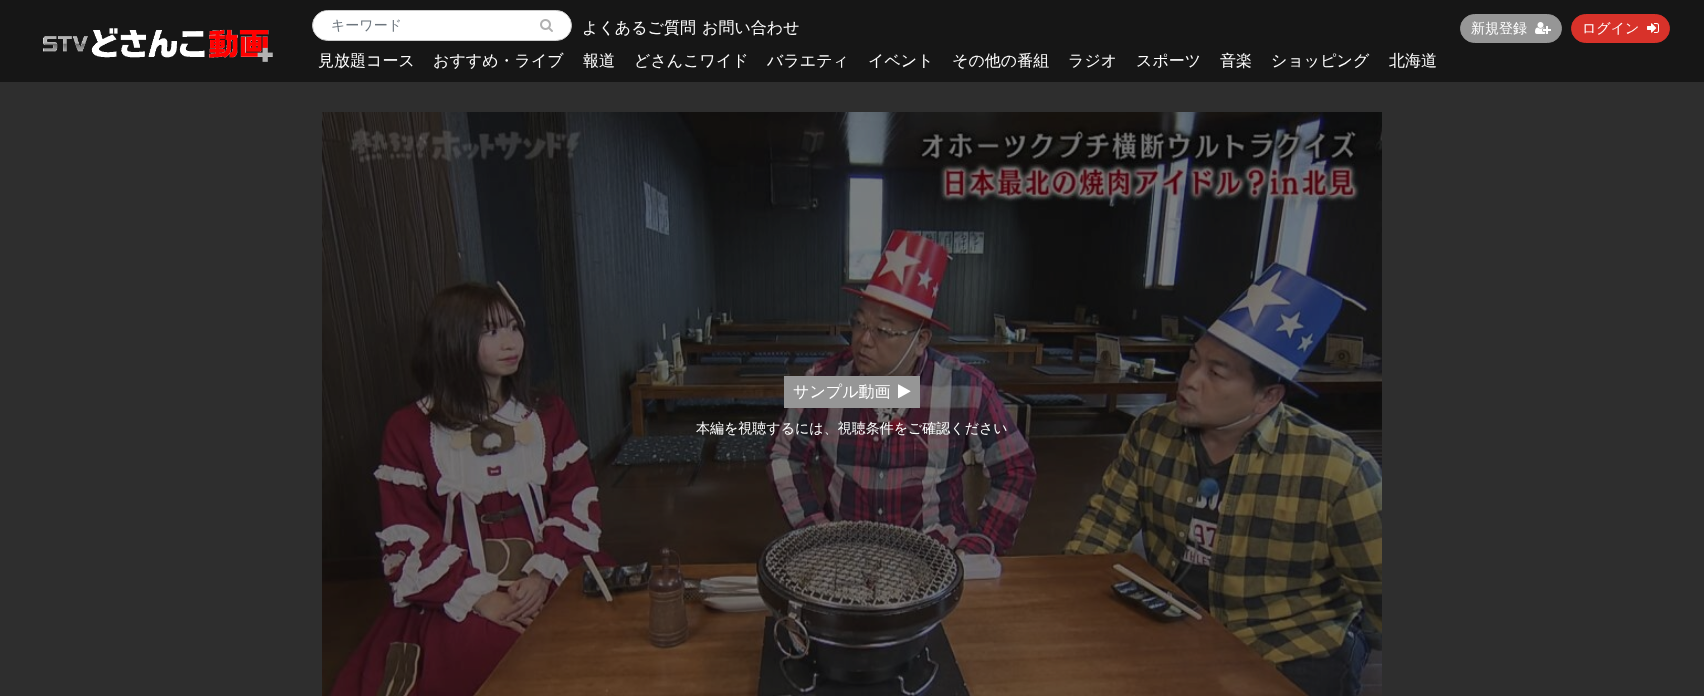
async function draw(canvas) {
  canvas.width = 1704
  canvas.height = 696
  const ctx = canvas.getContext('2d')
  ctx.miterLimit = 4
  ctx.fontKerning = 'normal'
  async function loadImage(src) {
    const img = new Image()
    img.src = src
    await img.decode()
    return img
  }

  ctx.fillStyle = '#2e2e2e'
  ctx.fillRect(0, 0, 1704, 696)
  ctx.fillStyle = '#161616'
  ctx.fillRect(0, 0, 1704, 82)
  ctx.drawImage(await loadImage('image0.png'), 43, 28, 230, 34)
  ctx.fillStyle = '#fff'
  ctx.beginPath()
  ctx.roundRect(312.5, 10.5, 259, 30, 15)
  ctx.fill()
  ctx.strokeStyle = '#ccc'
  ctx.stroke()
  ctx.beginPath()
  ctx.roundRect(323, 11, 210, 28, [3, 0, 0, 3])
  ctx.fill()
  ctx.font = '500 14px WenQuanYi Zen Hei'
  ctx.fillStyle = '#6c757d'
  ctx.fillText('キーワード', 331, 30)
  ctx.drawImage(await loadImage('image1.png'), 540, 19, 13, 13)
  ctx.font = '500 16px WenQuanYi Zen Hei'
  ctx.fillStyle = '#fff'
  ctx.fillText('よくあるご質問', 582, 33)
  ctx.fillText('お問い合わせ', 702, 33)
  ctx.fillStyle = '#969696'
  ctx.beginPath()
  ctx.roundRect(1460.5, 14.5, 101, 28, 14)
  ctx.fill()
  ctx.strokeStyle = '#969696'
  ctx.stroke()
  ctx.font = '500 14px WenQuanYi Zen Hei'
  ctx.fillStyle = '#fff'
  ctx.fillText('新規登録', 1471, 33)
  ctx.drawImage(await loadImage('image2.png'), 1535, 22, 16, 12)
  ctx.fillStyle = '#d8322a'
  ctx.beginPath()
  ctx.roundRect(1571.5, 14.5, 98, 28, 14)
  ctx.fill()
  ctx.strokeStyle = '#d8322a'
  ctx.stroke()
  ctx.fillStyle = '#fff'
  ctx.fillText('ログイン', 1582, 33)
  ctx.drawImage(await loadImage('image3.png'), 1647, 23, 12, 10)
  ctx.font = '500 16px WenQuanYi Zen Hei'
  ctx.fillText('見放題コース', 318, 66)
  ctx.fillText('おすすめ・ライブ', 433, 66)
  ctx.fillText('報道', 583, 66)
  ctx.fillText('どさんこワイド', 634, 66)
  ctx.fillText('バラエティ', 767, 66)
  ctx.fillText('イベント', 868, 66)
  ctx.fillText('その他の番組', 952, 66)
  ctx.fillText('ラジオ', 1068, 66)
  ctx.fillText('スポーツ', 1136, 66)
  ctx.fillText('音楽', 1220, 66)
  ctx.fillText('ショッピング', 1271, 66)
  ctx.fillText('北海道', 1389, 66)
  ctx.drawImage(await loadImage('image4.png'), 322, 112, 1060, 584)
  ctx.fillStyle = '#969696'
  ctx.fillRect(784, 376, 136, 32)
  ctx.fillStyle = '#fff'
  ctx.fillText('サンプル動画', 793, 397)
  ctx.drawImage(await loadImage('image5.png'), 898, 384, 13, 15)
  ctx.font = '500 14px WenQuanYi Zen Hei'
  ctx.fillText('本編を視聴するには、視聴条件をご確認ください', 696, 433)
}

draw(document.querySelector('canvas'))
